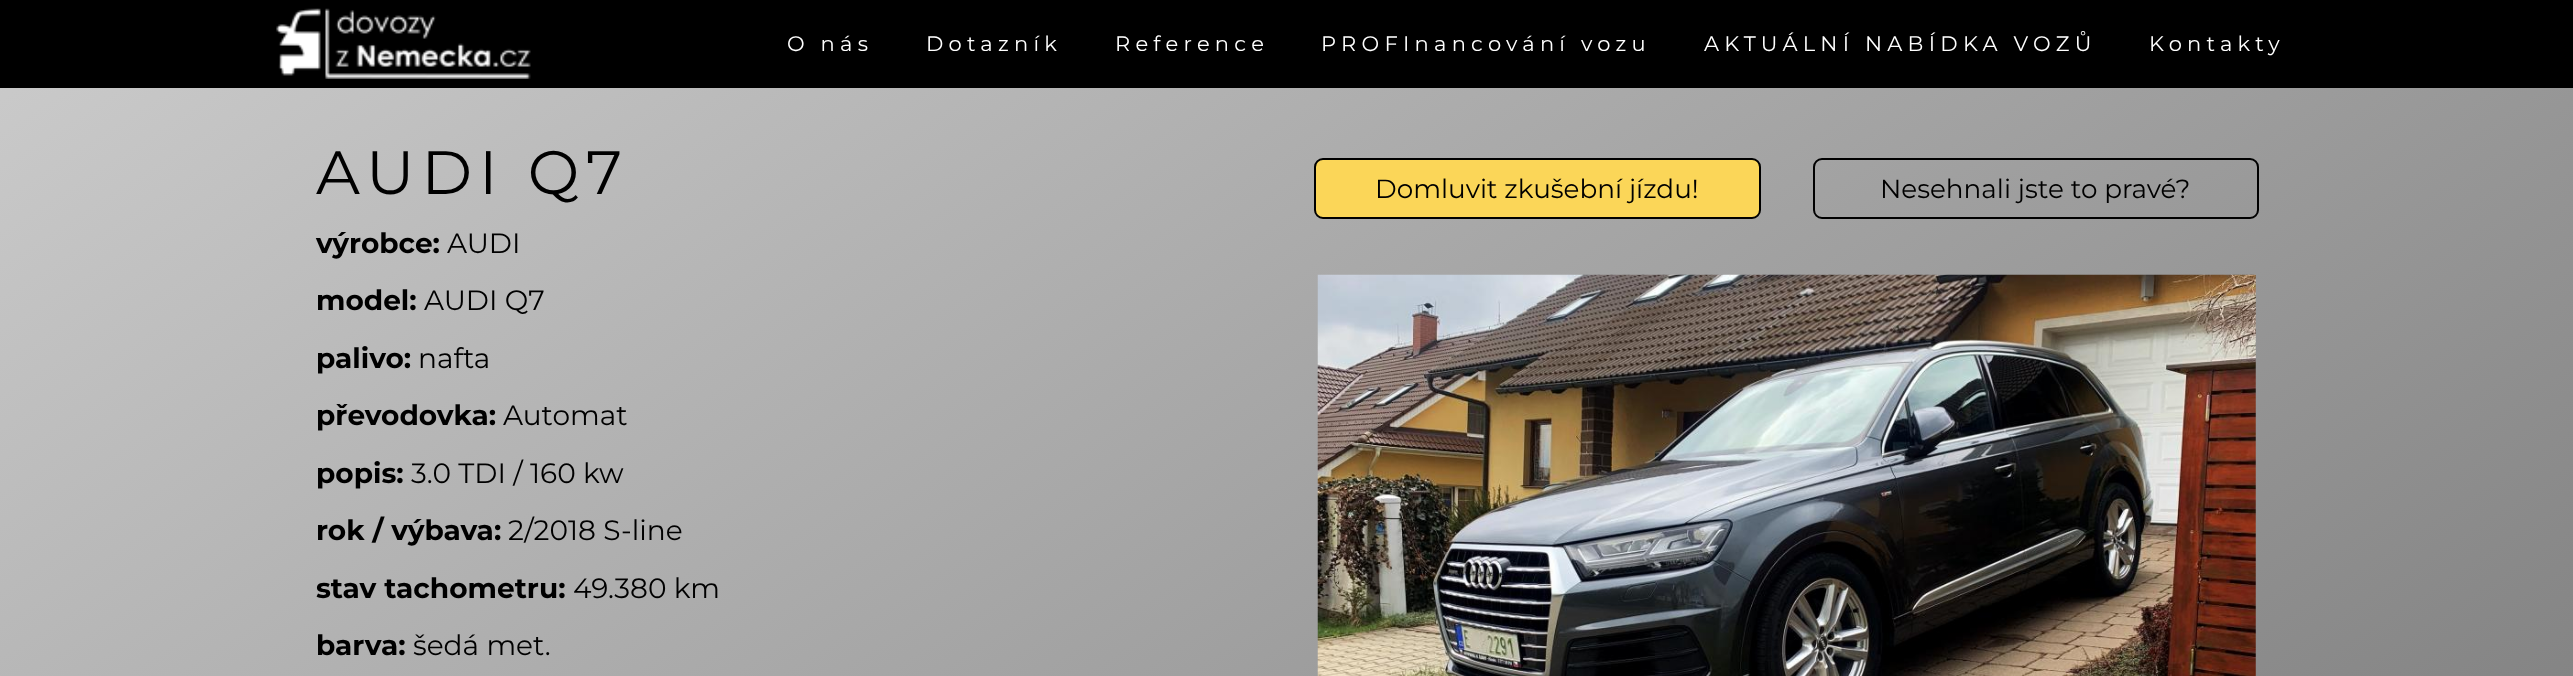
async function draw(canvas) {
  canvas.width = 2573
  canvas.height = 676
  const ctx = canvas.getContext('2d')
  ctx.miterLimit = 4
  ctx.fontKerning = 'normal'
  async function loadImage(src) {
    const img = new Image()
    img.src = src
    await img.decode()
    return img
  }
  let gradient

  ctx.fillStyle = '#fff'
  ctx.fillRect(0, 0, 2573, 676)
  ctx.fillStyle = '#000'
  ctx.fillRect(0, 0, 2573, 88)
  ctx.drawImage(await loadImage('image0.png'), 276, 8, 255, 71)
  ctx.letterSpacing = '5.25px'
  ctx.font = '21px Montserrat'
  ctx.fillStyle = '#fff'
  ctx.fillText('O nás', 787, 51)
  ctx.fillText('Dotazník', 926, 51)
  ctx.fillText('Reference', 1115, 51)
  ctx.fillText('PROFInancování vozu', 1321, 51)
  ctx.fillText('AKTUÁLNÍ NABÍDKA VOZŮ', 1704, 51)
  ctx.fillText('Kontakty', 2149, 51)
  gradient = ctx.createLinearGradient(524, -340, 2050, 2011)
  gradient.addColorStop(0, '#ccc')
  gradient.addColorStop(1, '#666')
  ctx.fillStyle = gradient
  ctx.fillRect(0, 88, 2573, 588)
  ctx.letterSpacing = '7px'
  ctx.font = '61.25px Montserrat'
  ctx.fillStyle = '#000'
  ctx.fillText('AUDI Q7', 316, 194)
  ctx.letterSpacing = '0px'
  ctx.font = 'bold 28px Montserrat'
  ctx.fillText('výrobce:', 316, 253)
  ctx.font = '28px Montserrat'
  ctx.fillText('AUDI', 447, 253)
  ctx.font = 'bold 28px Montserrat'
  ctx.fillText('model:', 316, 310)
  ctx.font = '28px Montserrat'
  ctx.fillText('AUDI Q7', 424, 310)
  ctx.font = 'bold 28px Montserrat'
  ctx.fillText('palivo:', 316, 368)
  ctx.font = '28px Montserrat'
  ctx.fillText('nafta', 418, 368)
  ctx.font = 'bold 28px Montserrat'
  ctx.fillText('převodovka:', 316, 425)
  ctx.font = '28px Montserrat'
  ctx.fillText('Automat', 503, 425)
  ctx.font = 'bold 28px Montserrat'
  ctx.fillText('popis:', 316, 483)
  ctx.font = '28px Montserrat'
  ctx.fillText('3.0 TDI / 160 kw', 411, 483)
  ctx.font = 'bold 28px Montserrat'
  ctx.fillText('rok / výbava:', 316, 540)
  ctx.font = '28px Montserrat'
  ctx.fillText('2/2018 S-line', 508, 540)
  ctx.font = 'bold 28px Montserrat'
  ctx.fillText('stav tachometru:', 316, 598)
  ctx.font = '28px Montserrat'
  ctx.fillText('49.380 km', 573, 598)
  ctx.font = 'bold 28px Montserrat'
  ctx.fillText('barva:', 316, 655)
  ctx.font = '28px Montserrat'
  ctx.fillText('šedá met.', 413, 655)
  ctx.fillStyle = '#fbd658'
  ctx.beginPath()
  ctx.roundRect(1315, 159, 445, 59, 8)
  ctx.fill()
  ctx.strokeStyle = '#000'
  ctx.lineWidth = 2
  ctx.stroke()
  ctx.font = '26.25px Montserrat'
  ctx.fillStyle = '#000'
  ctx.fillText('Domluvit zkušební jízdu!', 1375, 198)
  ctx.beginPath()
  ctx.roundRect(1814, 159, 444, 59, 8)
  ctx.stroke()
  ctx.fillText('Nesehnali jste to pravé?', 1880, 198)
  ctx.drawImage(await loadImage('image1.png'), 1317, 274, 939, 402)
}

draw(document.querySelector('canvas'))
